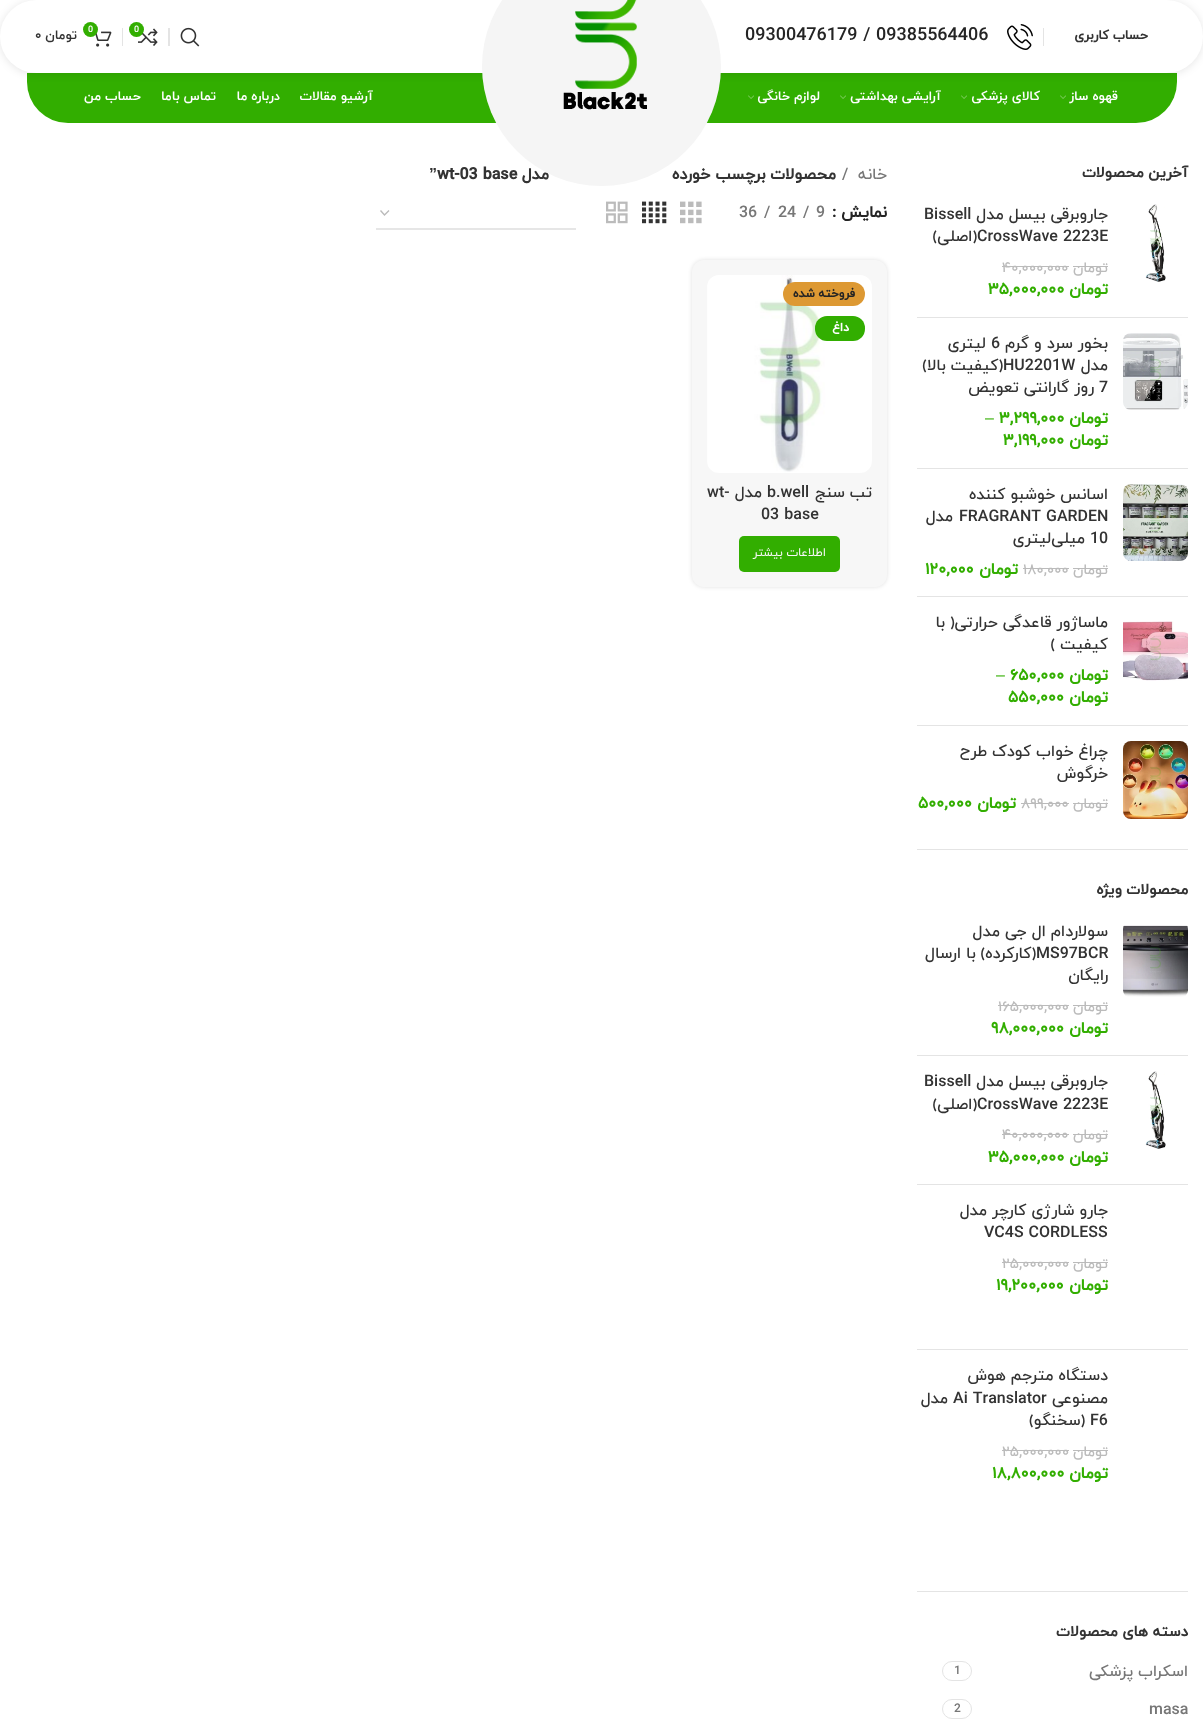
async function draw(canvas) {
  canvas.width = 1203
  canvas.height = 1729
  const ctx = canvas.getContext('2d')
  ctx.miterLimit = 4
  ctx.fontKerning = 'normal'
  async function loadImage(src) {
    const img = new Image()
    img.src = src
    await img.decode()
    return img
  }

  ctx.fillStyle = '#fff'
  ctx.fillRect(0, 0, 1203, 1729)
  ctx.fillStyle = '#32ae00'
  ctx.beginPath()
  ctx.roundRect(27, 73, 1150, 50, [0, 0, 41, 41])
  ctx.fill()
  ctx.fillStyle = '#0000001a'
  ctx.filter = 'blur(4px)'
  ctx.beginPath()
  ctx.roundRect(0, 1, 1203, 73, 36.5)
  ctx.fill()
  ctx.filter = 'none'
  ctx.fillStyle = '#fff'
  ctx.beginPath()
  ctx.roundRect(0, 0, 1203, 73, 36.5)
  ctx.fill()
  ctx.direction = 'rtl'
  ctx.font = 'bold 13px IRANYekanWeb'
  ctx.fillStyle = '#333'
  ctx.fillText('حساب کاربری', 1148, 39)
  ctx.fillStyle = '#e4e4e4'
  ctx.fillRect(1043, 28, 1, 18)
  ctx.drawImage(await loadImage('image0.png'), 1007, 24, 26, 26)
  ctx.direction = 'ltr'
  ctx.font = 'bold 18px "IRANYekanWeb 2"'
  ctx.fillStyle = '#242424'
  ctx.fillText('09300476179 / 09385564406', 745, 40)
  ctx.direction = 'rtl'
  ctx.font = 'bold 16px IRANYekanWeb'
  ctx.fillStyle = '#333'
  ctx.fillText('محصولات برچسب خورده', 836, 179)
  ctx.fillText('مدل', 549, 179)
  ctx.direction = 'ltr'
  ctx.fillText('wt-03 base', 437, 179)
  ctx.fillStyle = '#f5f5f5'
  ctx.beginPath()
  ctx.arc(601.5, 66.5, 119.5, 0, 2 * Math.PI)
  ctx.fill()
  ctx.drawImage(await loadImage('image1.png'), 563, 0, 84, 110)
  ctx.drawImage(await loadImage('image2.png'), 180, 27, 20, 20)
  ctx.fillStyle = '#e4e4e4'
  ctx.fillRect(168, 28, 2, 18)
  ctx.drawImage(await loadImage('image3.png'), 138, 28, 20, 18)
  ctx.fillStyle = '#32ae00'
  ctx.beginPath()
  ctx.arc(136.5, 29.5, 7.5, 0, 2 * Math.PI)
  ctx.fill()
  ctx.font = '500 9px IRANYekanWeb'
  ctx.fillStyle = '#fff'
  ctx.fillText('0', 134, 32)
  ctx.fillStyle = '#e4e4e4'
  ctx.fillRect(122, 28, 1, 18)
  ctx.drawImage(await loadImage('image4.png'), 95, 31, 17, 16)
  ctx.fillStyle = '#32ae00'
  ctx.beginPath()
  ctx.arc(90.5, 29.5, 7.5, 0, 2 * Math.PI)
  ctx.fill()
  ctx.fillStyle = '#fff'
  ctx.fillText('0', 88, 32)
  ctx.direction = 'rtl'
  ctx.font = 'bold 13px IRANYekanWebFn'
  ctx.fillStyle = '#333'
  ctx.fillText('تومان', 77, 39)
  ctx.direction = 'ltr'
  ctx.fillText('۰', 35, 39)
  ctx.direction = 'rtl'
  ctx.fillStyle = '#fff'
  ctx.fillText('قهوه ساز', 1118, 100)
  ctx.drawImage(await loadImage('image5.png'), 1060, 95, 6, 4)
  ctx.fillText('کالای پزشکی', 1040, 100)
  ctx.drawImage(await loadImage('image5.png'), 961, 95, 6, 4)
  ctx.fillText('آرایشی بهداشتی', 941, 100)
  ctx.drawImage(await loadImage('image5.png'), 840, 95, 6, 4)
  ctx.fillText('لوازم خانگی', 820, 100)
  ctx.drawImage(await loadImage('image5.png'), 748, 95, 6, 4)
  ctx.fillText('آرشیو مقالات', 373, 100)
  ctx.fillText('درباره ما', 280, 100)
  ctx.fillText('تماس باما', 216, 100)
  ctx.fillText('حساب من', 141, 100)
  ctx.fillStyle = '#e4e4e4'
  ctx.fillRect(917, 849, 271, 1)
  ctx.font = 'bold 15px IRANYekanWeb'
  ctx.fillStyle = '#333'
  ctx.fillText('آخرین‌ محصولات', 1188, 177)
  ctx.fillStyle = '#e4e4e4'
  ctx.fillRect(917, 317, 271, 1)
  ctx.drawImage(await loadImage('image6.png'), 1145, 204, 21, 78)
  ctx.font = '500 16px IRANYekanWeb'
  ctx.fillStyle = '#333'
  ctx.fillText('جاروبرقی بیسل مدل', 1108, 219)
  ctx.direction = 'ltr'
  ctx.fillText('Bissell', 924, 219)
  ctx.fillText('CrossWave 2223E', 977, 241)
  ctx.direction = 'rtl'
  ctx.fillText('(اصلی)', 977, 241)
  ctx.font = '500 14.5px IRANYekanWeb'
  ctx.fillStyle = '#bbb'
  ctx.fillText('تومان', 1108, 272)
  ctx.fillRect(1073, 266, 35, 1)
  ctx.direction = 'ltr'
  ctx.fillText('۴۰,۰۰۰,۰۰۰', 1002, 272)
  ctx.fillRect(1002, 266, 67, 1)
  ctx.direction = 'rtl'
  ctx.font = 'bold 16px IRANYekanWeb'
  ctx.fillStyle = '#32ae00'
  ctx.fillText('تومان', 1108, 294)
  ctx.direction = 'ltr'
  ctx.fillText('۳۵,۰۰۰,۰۰۰', 988, 294)
  ctx.fillStyle = '#e4e4e4'
  ctx.fillRect(917, 468, 271, 1)
  ctx.drawImage(await loadImage('image7.png'), 1123, 333, 65, 77)
  ctx.direction = 'rtl'
  ctx.font = '500 16px IRANYekanWeb'
  ctx.fillStyle = '#333'
  ctx.fillText('بخور سرد و گرم', 1108, 348)
  ctx.direction = 'ltr'
  ctx.fillText('6', 991, 348)
  ctx.direction = 'rtl'
  ctx.fillText('لیتری', 986, 348)
  ctx.fillText('مدل', 1108, 370)
  ctx.direction = 'ltr'
  ctx.fillText('HU2201W', 1003, 370)
  ctx.direction = 'rtl'
  ctx.fillText('(کیفیت بالا)', 1003, 370)
  ctx.direction = 'ltr'
  ctx.fillText('7', 1099, 392)
  ctx.direction = 'rtl'
  ctx.fillText('روز گارانتی تعویض', 1094, 392)
  ctx.font = 'bold 16px IRANYekanWeb'
  ctx.fillStyle = '#32ae00'
  ctx.fillText('تومان', 1108, 423)
  ctx.direction = 'ltr'
  ctx.fillText('۳,۲۹۹,۰۰۰', 999, 423)
  ctx.font = '16px Liberation Sans'
  ctx.fillText('–', 985, 423)
  ctx.direction = 'rtl'
  ctx.font = 'bold 16px IRANYekanWeb'
  ctx.fillText('تومان', 1108, 445)
  ctx.direction = 'ltr'
  ctx.fillText('۳,۱۹۹,۰۰۰', 1003, 445)
  ctx.fillStyle = '#e4e4e4'
  ctx.fillRect(917, 596, 271, 1)
  ctx.drawImage(await loadImage('image8.png'), 1123, 484, 65, 77)
  ctx.direction = 'rtl'
  ctx.font = '500 16px IRANYekanWeb'
  ctx.fillStyle = '#333'
  ctx.fillText('اسانس خوشبو کننده', 1108, 499)
  ctx.direction = 'ltr'
  ctx.fillText('FRAGRANT GARDEN', 959, 521)
  ctx.direction = 'rtl'
  ctx.fillText('مدل', 953, 521)
  ctx.direction = 'ltr'
  ctx.fillText('10', 1090, 543)
  ctx.direction = 'rtl'
  ctx.fillText('میلی‌لیتری', 1085, 543)
  ctx.font = '500 14.5px IRANYekanWeb'
  ctx.fillStyle = '#bbb'
  ctx.fillText('تومان', 1108, 574)
  ctx.fillRect(1073, 568, 35, 1)
  ctx.direction = 'ltr'
  ctx.fillText('۱۸۰,۰۰۰', 1023, 574)
  ctx.fillRect(1023, 568, 46, 1)
  ctx.direction = 'rtl'
  ctx.font = 'bold 16px IRANYekanWeb'
  ctx.fillStyle = '#32ae00'
  ctx.fillText('تومان', 1018, 574)
  ctx.direction = 'ltr'
  ctx.fillText('۱۲۰,۰۰۰', 925, 574)
  ctx.fillStyle = '#e4e4e4'
  ctx.fillRect(917, 725, 271, 1)
  ctx.drawImage(await loadImage('image9.png'), 1123, 621, 65, 60)
  ctx.direction = 'rtl'
  ctx.font = '500 16px IRANYekanWeb'
  ctx.fillStyle = '#333'
  ctx.fillText('ماساژور قاعدگی حرارتی( با', 1108, 627)
  ctx.fillText('کیفیت )', 1108, 649)
  ctx.font = 'bold 16px IRANYekanWeb'
  ctx.fillStyle = '#32ae00'
  ctx.fillText('تومان', 1108, 680)
  ctx.direction = 'ltr'
  ctx.fillText('۶۵۰,۰۰۰', 1010, 680)
  ctx.font = '16px Liberation Sans'
  ctx.fillText('–', 996, 680)
  ctx.direction = 'rtl'
  ctx.font = 'bold 16px IRANYekanWeb'
  ctx.fillText('تومان', 1108, 702)
  ctx.direction = 'ltr'
  ctx.fillText('۵۵۰,۰۰۰', 1008, 702)
  ctx.drawImage(await loadImage('image10.png'), 1123, 741, 65, 78)
  ctx.direction = 'rtl'
  ctx.font = '500 16px IRANYekanWeb'
  ctx.fillStyle = '#333'
  ctx.fillText('چراغ خواب کودک طرح', 1108, 756)
  ctx.fillText('خرگوش', 1108, 778)
  ctx.font = '500 14.5px IRANYekanWeb'
  ctx.fillStyle = '#bbb'
  ctx.fillText('تومان', 1108, 808)
  ctx.fillRect(1073, 803, 35, 1)
  ctx.direction = 'ltr'
  ctx.fillText('۸۹۹,۰۰۰', 1021, 808)
  ctx.fillRect(1021, 803, 48, 1)
  ctx.direction = 'rtl'
  ctx.font = 'bold 16px IRANYekanWeb'
  ctx.fillStyle = '#32ae00'
  ctx.fillText('تومان', 1016, 808)
  ctx.direction = 'ltr'
  ctx.fillText('۵۰۰,۰۰۰', 918, 808)
  ctx.fillStyle = '#e4e4e4'
  ctx.fillRect(917, 1591, 271, 1)
  ctx.direction = 'rtl'
  ctx.font = 'bold 15px IRANYekanWeb'
  ctx.fillStyle = '#333'
  ctx.fillText('محصولات ویژه', 1188, 894)
  ctx.fillStyle = '#e4e4e4'
  ctx.fillRect(917, 1055, 271, 1)
  ctx.drawImage(await loadImage('image11.png'), 1123, 925, 65, 72)
  ctx.font = '500 16px IRANYekanWeb'
  ctx.fillStyle = '#333'
  ctx.fillText('سولاردام ال جی مدل', 1108, 936)
  ctx.direction = 'ltr'
  ctx.fillText('MS97BCR', 1036, 958)
  ctx.direction = 'rtl'
  ctx.fillText('(کارکرده) با ارسال', 1036, 958)
  ctx.fillText('رایگان', 1108, 980)
  ctx.font = '500 14.5px IRANYekanWeb'
  ctx.fillStyle = '#bbb'
  ctx.fillText('تومان', 1108, 1011)
  ctx.fillRect(1073, 1005, 35, 1)
  ctx.direction = 'ltr'
  ctx.fillText('۱۶۵,۰۰۰,۰۰۰', 998, 1011)
  ctx.fillRect(998, 1005, 71, 1)
  ctx.direction = 'rtl'
  ctx.font = 'bold 16px IRANYekanWeb'
  ctx.fillStyle = '#32ae00'
  ctx.fillText('تومان', 1108, 1033)
  ctx.direction = 'ltr'
  ctx.fillText('۹۸,۰۰۰,۰۰۰', 991, 1033)
  ctx.fillStyle = '#e4e4e4'
  ctx.fillRect(917, 1184, 271, 1)
  ctx.drawImage(await loadImage('image6.png'), 1145, 1071, 21, 78)
  ctx.direction = 'rtl'
  ctx.font = '500 16px IRANYekanWeb'
  ctx.fillStyle = '#333'
  ctx.fillText('جاروبرقی بیسل مدل', 1108, 1086)
  ctx.direction = 'ltr'
  ctx.fillText('Bissell', 924, 1086)
  ctx.fillText('CrossWave 2223E', 977, 1109)
  ctx.direction = 'rtl'
  ctx.fillText('(اصلی)', 977, 1109)
  ctx.font = '500 14.5px IRANYekanWeb'
  ctx.fillStyle = '#bbb'
  ctx.fillText('تومان', 1108, 1139)
  ctx.fillRect(1073, 1134, 35, 1)
  ctx.direction = 'ltr'
  ctx.fillText('۴۰,۰۰۰,۰۰۰', 1002, 1139)
  ctx.fillRect(1002, 1134, 67, 1)
  ctx.direction = 'rtl'
  ctx.font = 'bold 16px IRANYekanWeb'
  ctx.fillStyle = '#32ae00'
  ctx.fillText('تومان', 1108, 1162)
  ctx.direction = 'ltr'
  ctx.fillText('۳۵,۰۰۰,۰۰۰', 988, 1162)
  ctx.fillStyle = '#e4e4e4'
  ctx.fillRect(917, 1349, 271, 1)
  ctx.direction = 'rtl'
  ctx.font = '500 16px IRANYekanWeb'
  ctx.fillStyle = '#333'
  ctx.fillText('جارو شارژی کارچر مدل', 1108, 1215)
  ctx.direction = 'ltr'
  ctx.fillText('VC4S CORDLESS', 984, 1237)
  ctx.direction = 'rtl'
  ctx.font = '500 14.5px IRANYekanWeb'
  ctx.fillStyle = '#bbb'
  ctx.fillText('تومان', 1108, 1268)
  ctx.fillRect(1073, 1262, 35, 1)
  ctx.direction = 'ltr'
  ctx.fillText('۲۵,۰۰۰,۰۰۰', 1002, 1268)
  ctx.fillRect(1002, 1262, 67, 1)
  ctx.direction = 'rtl'
  ctx.font = 'bold 16px IRANYekanWeb'
  ctx.fillStyle = '#32ae00'
  ctx.fillText('تومان', 1108, 1290)
  ctx.direction = 'ltr'
  ctx.fillText('۱۹,۲۰۰,۰۰۰', 996, 1290)
  ctx.direction = 'rtl'
  ctx.font = '500 16px IRANYekanWeb'
  ctx.fillStyle = '#333'
  ctx.fillText('دستگاه مترجم هوش', 1108, 1380)
  ctx.fillText('مصنوعی', 1108, 1403)
  ctx.direction = 'ltr'
  ctx.fillText('Ai Translator', 953, 1403)
  ctx.direction = 'rtl'
  ctx.fillText('مدل', 948, 1403)
  ctx.direction = 'ltr'
  ctx.fillText('F6', 1090, 1425)
  ctx.direction = 'rtl'
  ctx.fillText('(سخنگو)', 1085, 1425)
  ctx.font = '500 14.5px IRANYekanWeb'
  ctx.fillStyle = '#bbb'
  ctx.fillText('تومان', 1108, 1456)
  ctx.fillRect(1073, 1450, 35, 1)
  ctx.direction = 'ltr'
  ctx.fillText('۲۵,۰۰۰,۰۰۰', 1002, 1456)
  ctx.fillRect(1002, 1450, 67, 1)
  ctx.direction = 'rtl'
  ctx.font = 'bold 16px IRANYekanWeb'
  ctx.fillStyle = '#32ae00'
  ctx.fillText('تومان', 1108, 1478)
  ctx.direction = 'ltr'
  ctx.fillText('۱۸,۸۰۰,۰۰۰', 992, 1478)
  ctx.direction = 'rtl'
  ctx.font = 'bold 15px IRANYekanWeb'
  ctx.fillStyle = '#333'
  ctx.fillText('دسته های محصولات', 1188, 1636)
  ctx.font = '500 16px IRANYekanWeb'
  ctx.fillStyle = '#777'
  ctx.fillText('اسکراب پزشکی', 1188, 1676)
  ctx.beginPath()
  ctx.roundRect(942.5, 1661.5, 29, 19, 9.5)
  ctx.strokeStyle = '#e4e4e4'
  ctx.stroke()
  ctx.direction = 'ltr'
  ctx.font = '500 12px IRANYekanWeb'
  ctx.fillText('1', 954, 1674)
  ctx.font = '500 16px IRANYekanWeb'
  ctx.fillText('masa', 1149, 1714)
  ctx.beginPath()
  ctx.roundRect(942.5, 1699.5, 29, 19, 9.5)
  ctx.stroke()
  ctx.font = '500 12px IRANYekanWeb'
  ctx.fillText('2', 954, 1712)
  ctx.direction = 'rtl'
  ctx.font = '500 16px IRANYekanWeb'
  ctx.fillText('خانه', 887, 179)
  ctx.direction = 'ltr'
  ctx.fillText('/', 842, 179)
  ctx.font = 'bold 16px Liberation Sans'
  ctx.fillStyle = '#333'
  ctx.fillText('”', 429, 179)
  ctx.direction = 'rtl'
  ctx.font = 'bold 16px IRANYekanWeb'
  ctx.fillStyle = '#242424'
  ctx.fillText('نمایش', 887, 217)
  ctx.direction = 'ltr'
  ctx.fillText(':', 832, 217)
  ctx.font = '500 16px IRANYekanWeb'
  ctx.fillStyle = '#777'
  ctx.fillText('9', 816, 217)
  ctx.fillText('/', 803, 217)
  ctx.fillText('24', 778, 217)
  ctx.fillText('/', 764, 217)
  ctx.fillText('36', 739, 217)
  ctx.drawImage(await loadImage('image12.png'), 680, 201, 22, 23)
  ctx.drawImage(await loadImage('image13.png'), 642, 201, 25, 23)
  ctx.drawImage(await loadImage('image14.png'), 606, 201, 22, 23)
  ctx.beginPath()
  ctx.moveTo(380.5, 210.5)
  ctx.lineTo(384.5, 215)
  ctx.lineTo(389, 210.5)
  ctx.strokeStyle = '#bbb'
  ctx.lineWidth = 1.4
  ctx.stroke()
  ctx.fillStyle = '#e6e6e6'
  ctx.fillRect(376, 228, 200, 2)
  ctx.fillStyle = '#0000001f'
  ctx.filter = 'blur(2px)'
  ctx.beginPath()
  ctx.roundRect(692, 260, 195, 327, 12)
  ctx.fill()
  ctx.filter = 'none'
  ctx.fillStyle = '#f7f7f7'
  ctx.beginPath()
  ctx.roundRect(692, 260, 195, 327, 12)
  ctx.fill()
  ctx.drawImage(await loadImage('image15.png'), 707, 275, 165, 198)
  ctx.fillStyle = '#d93'
  ctx.beginPath()
  ctx.roundRect(783, 282, 82, 24, 12)
  ctx.fill()
  ctx.direction = 'rtl'
  ctx.font = 'bold 12px IRANYekanWeb'
  ctx.fillStyle = '#242424'
  ctx.fillText('فروخته شده', 855, 297)
  ctx.fillStyle = '#32ae00'
  ctx.beginPath()
  ctx.roundRect(815, 316, 50, 25, 12)
  ctx.fill()
  ctx.fillStyle = '#fff'
  ctx.fillText('داغ', 849, 331)
  ctx.font = '500 16px IRANYekanWeb'
  ctx.fillStyle = '#333'
  ctx.fillText('تب سنج', 872, 497)
  ctx.direction = 'ltr'
  ctx.fillText('b.well', 767, 497)
  ctx.direction = 'rtl'
  ctx.fillText('مدل', 762, 497)
  ctx.direction = 'ltr'
  ctx.fillText('wt-', 707, 497)
  ctx.fillText('03 base', 761, 519)
  ctx.fillStyle = '#32ae00'
  ctx.beginPath()
  ctx.roundRect(739, 536, 101, 36, 5)
  ctx.fill()
  ctx.direction = 'rtl'
  ctx.font = '12px IRANYekanWeb'
  ctx.fillStyle = '#f7f7f7'
  ctx.fillText('اطلاعات بیشتر', 826, 556)
}

draw(document.querySelector('canvas'))
